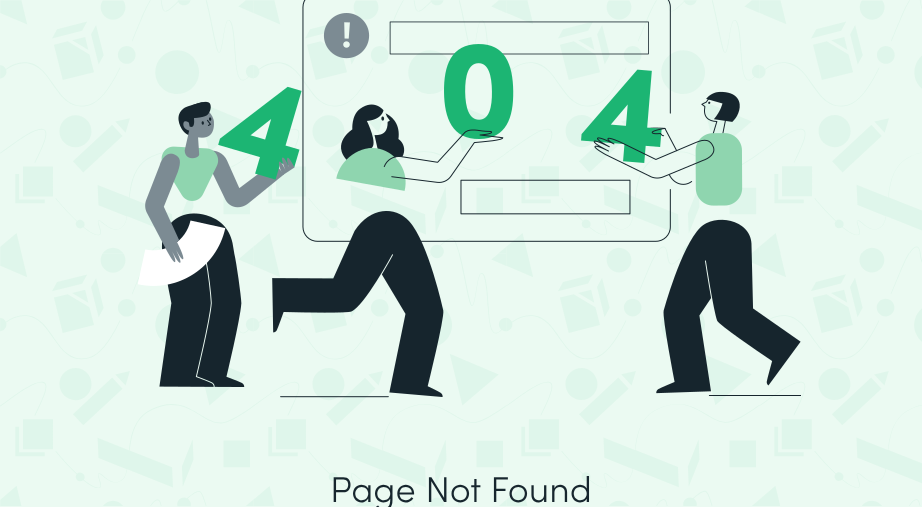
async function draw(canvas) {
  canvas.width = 922
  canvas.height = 507
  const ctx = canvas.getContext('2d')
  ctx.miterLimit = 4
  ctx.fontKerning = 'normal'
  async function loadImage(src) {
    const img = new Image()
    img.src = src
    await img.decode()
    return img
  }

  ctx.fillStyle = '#fff'
  ctx.fillRect(0, 0, 922, 507)
  ctx.drawImage(await loadImage('image0.png'), 0, 0, 922, 507)
  ctx.drawImage(await loadImage('image1.png'), 138, 0, 663, 398)
  ctx.font = '300 36px Sofia'
  ctx.fillStyle = '#17262e'
  ctx.fillText('Page Not Found', 330, 502)
}

draw(document.querySelector('canvas'))
